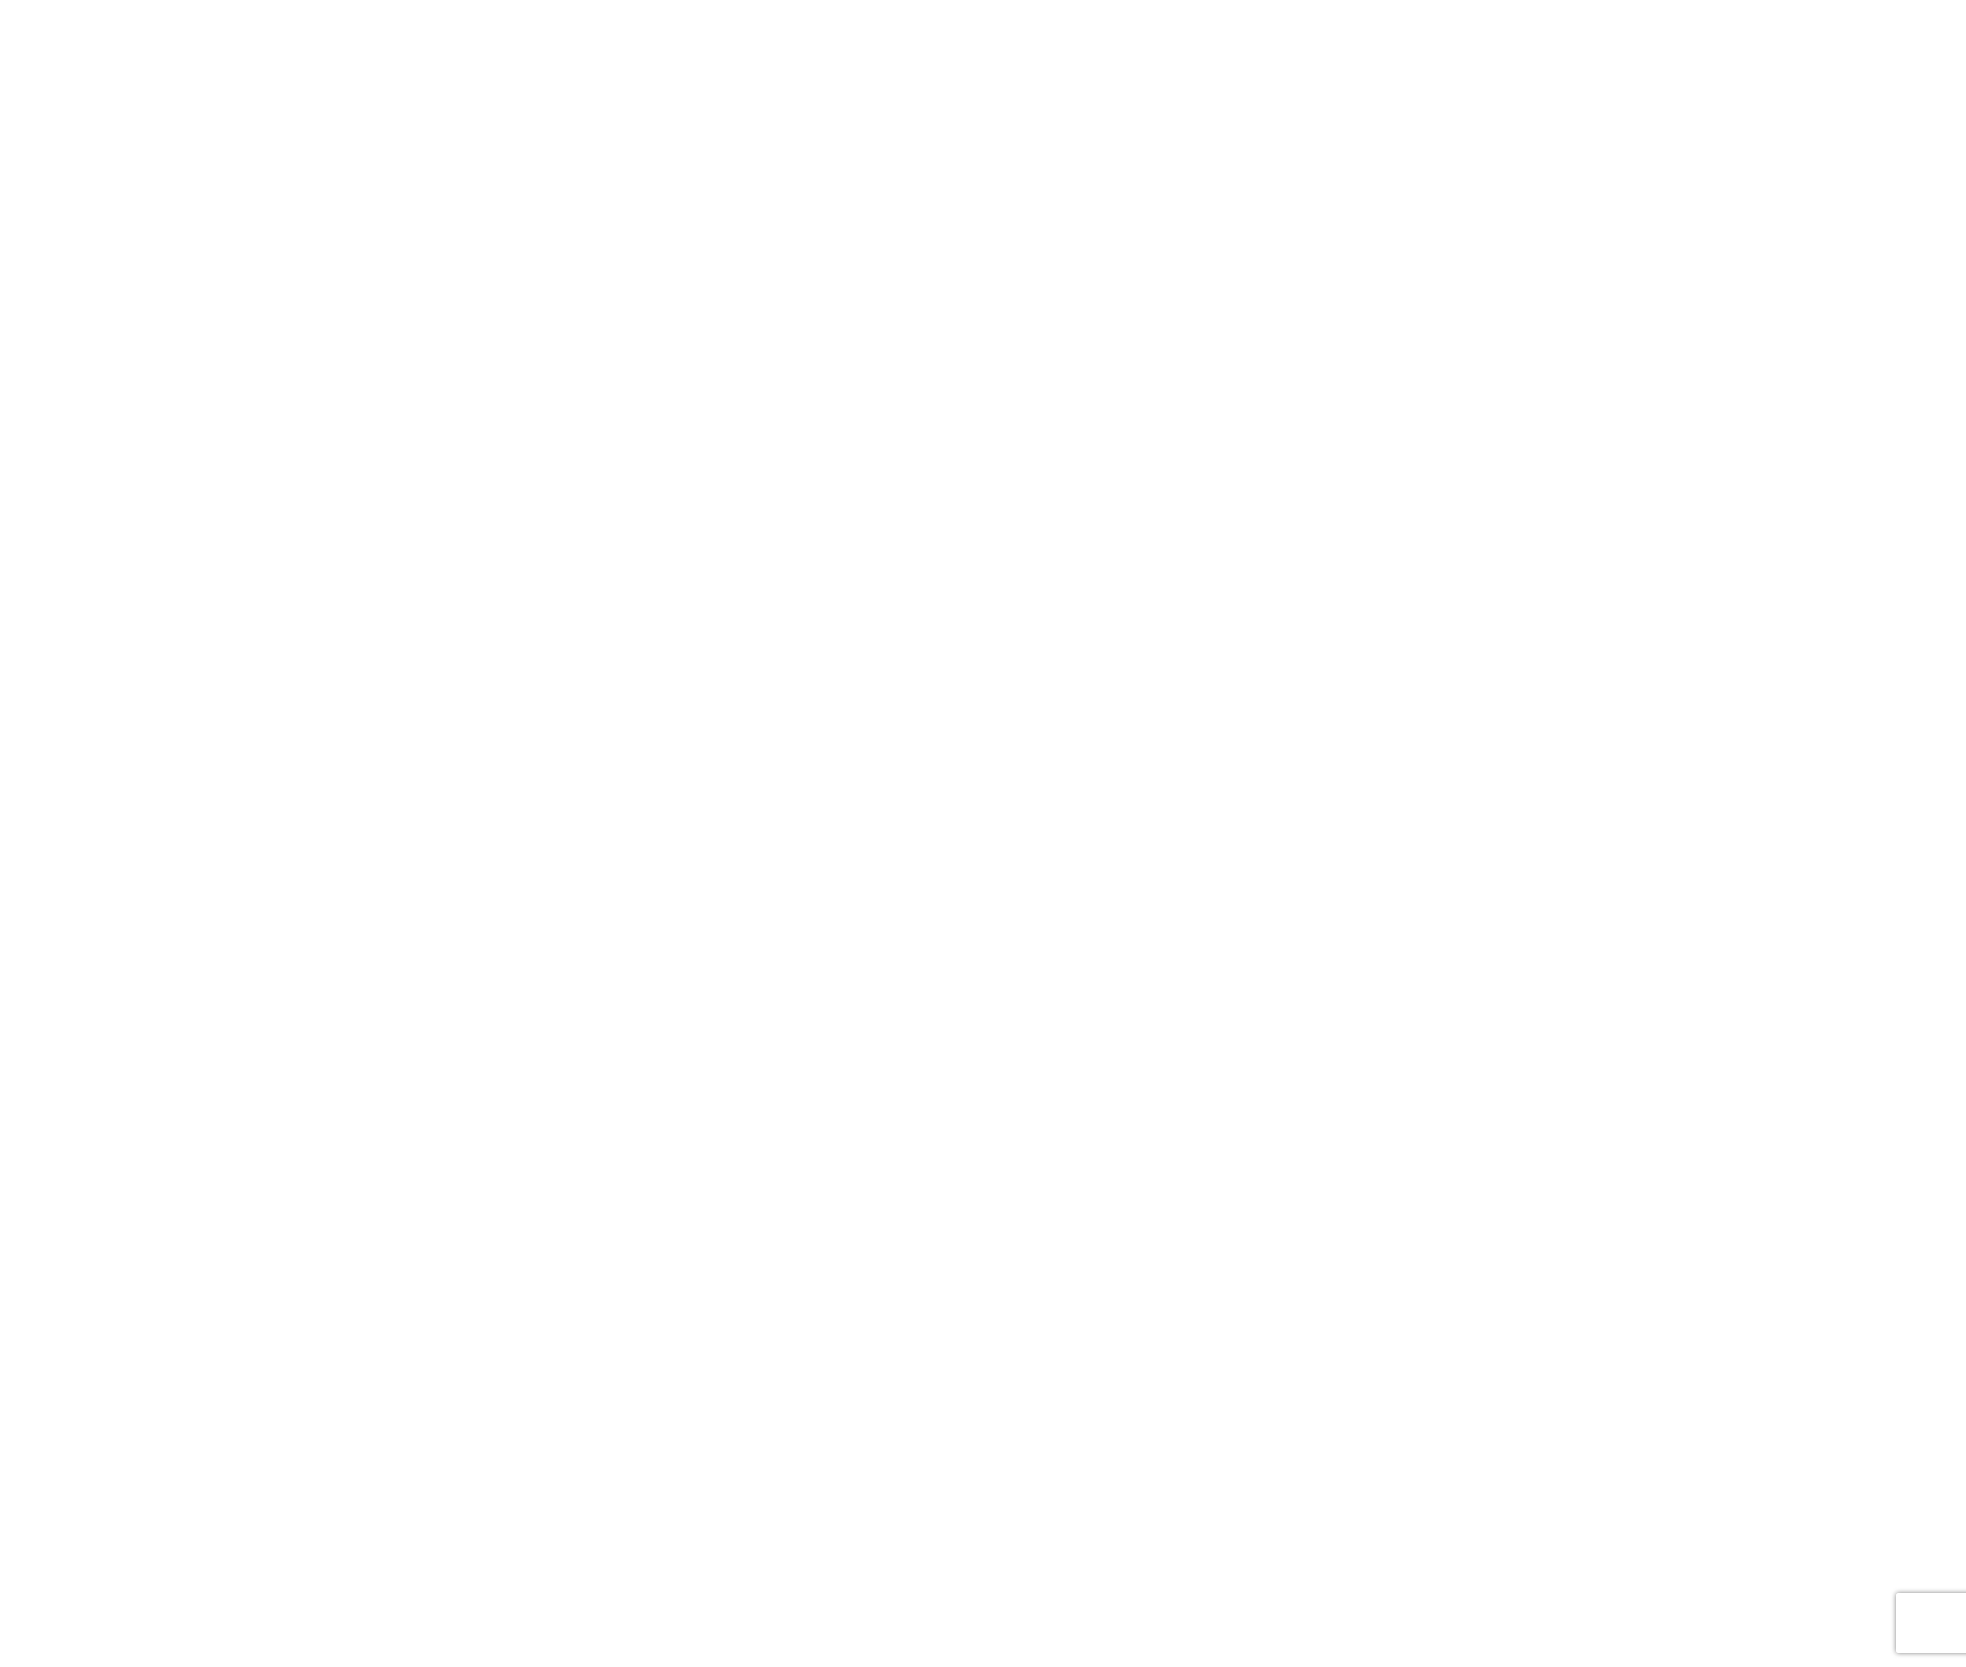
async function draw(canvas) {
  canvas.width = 1966
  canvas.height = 1667
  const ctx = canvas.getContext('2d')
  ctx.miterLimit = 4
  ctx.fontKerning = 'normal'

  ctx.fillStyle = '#fff'
  ctx.fillRect(0, 0, 1966, 1667)
  ctx.save()
  ctx.beginPath()
  ctx.moveTo(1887, 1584)
  ctx.lineTo(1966, 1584)
  ctx.lineTo(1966, 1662)
  ctx.lineTo(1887, 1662)
  ctx.closePath()
  ctx.moveTo(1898, 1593)
  ctx.lineTo(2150, 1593)
  ctx.bezierCurveTo(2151, 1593, 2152, 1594, 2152, 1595)
  ctx.lineTo(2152, 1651)
  ctx.bezierCurveTo(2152, 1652, 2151, 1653, 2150, 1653)
  ctx.lineTo(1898, 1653)
  ctx.bezierCurveTo(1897, 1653, 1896, 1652, 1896, 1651)
  ctx.lineTo(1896, 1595)
  ctx.bezierCurveTo(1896, 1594, 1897, 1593, 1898, 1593)
  ctx.closePath()
  ctx.clip('evenodd')
  ctx.fillStyle = '#808080'
  ctx.filter = 'blur(2.5px)'
  ctx.beginPath()
  ctx.roundRect(1896, 1593, 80, 60, 2)
  ctx.fill()
  ctx.filter = 'none'
  ctx.restore()
}

draw(document.querySelector('canvas'))
